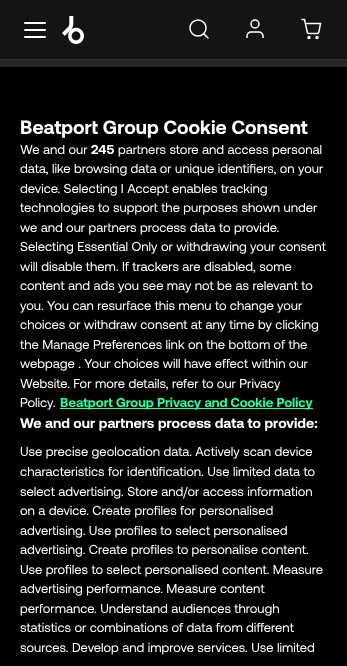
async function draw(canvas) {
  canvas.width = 347
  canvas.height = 666
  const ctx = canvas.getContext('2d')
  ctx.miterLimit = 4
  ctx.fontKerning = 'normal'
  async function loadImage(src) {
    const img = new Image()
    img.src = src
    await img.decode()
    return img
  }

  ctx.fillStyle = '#262626'
  ctx.fillRect(0, 0, 347, 666)
  ctx.fillStyle = '#141414'
  ctx.fillRect(0, 0, 347, 59)
  ctx.fillStyle = '#333'
  ctx.fillRect(0, 59, 347, 1)
  ctx.fillStyle = '#fff'
  ctx.beginPath()
  ctx.roundRect(24, 29, 22, 2, 1)
  ctx.fill()
  ctx.beginPath()
  ctx.roundRect(24, 22, 22, 2, 1)
  ctx.fill()
  ctx.beginPath()
  ctx.roundRect(24, 36, 22, 2, 1)
  ctx.fill()
  ctx.drawImage(await loadImage('image0.png'), 62, 16, 22, 28)
  ctx.drawImage(await loadImage('image1.png'), 189, 19, 20, 20)
  ctx.drawImage(await loadImage('image2.png'), 246, 19, 18, 19)
  ctx.drawImage(await loadImage('image3.png'), 301, 18, 21, 22)
  ctx.fillStyle = '#000'
  ctx.fillRect(0, 67, 347, 599)
  ctx.font = 'bold 19.25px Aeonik'
  ctx.fillStyle = '#fff'
  ctx.fillText('Beatport Group Cookie Consent', 20, 134)
  ctx.font = '13px Aeonik'
  ctx.fillText('We and our', 20, 154)
  ctx.font = 'bold 13px Aeonik'
  ctx.fillText('245', 91, 154)
  ctx.font = '13px Aeonik'
  ctx.fillText('partners store and access personal', 118, 154)
  ctx.fillText('data, like browsing data or unique identifiers, on your', 20, 173)
  ctx.fillText('device. Selecting I Accept enables tracking', 20, 193)
  ctx.fillText('technologies to support the purposes shown under', 20, 212)
  ctx.fillText('we and our partners process data to provide.', 20, 232)
  ctx.fillText('Selecting Essential Only or withdrawing your consent', 20, 251)
  ctx.fillText('will disable them. If trackers are disabled, some', 20, 271)
  ctx.fillText('content and ads you see may not be as relevant to', 20, 290)
  ctx.fillText('you. You can resurface this menu to change your', 20, 310)
  ctx.fillText('choices or withdraw consent at any time by clicking', 20, 329)
  ctx.fillText('the Manage Preferences link on the bottom of the', 20, 349)
  ctx.fillText('webpage . Your choices will have effect within our', 20, 368)
  ctx.fillText('Website. For more details, refer to our Privacy', 20, 388)
  ctx.fillText('Policy.', 20, 407)
  ctx.fillStyle = '#27ff9c'
  ctx.fillRect(60, 408, 253, 1)
  ctx.font = 'bold 13px Aeonik'
  ctx.fillText('Beatport Group Privacy and Cookie Policy', 60, 407)
  ctx.font = 'bold 14.1px Aeonik'
  ctx.fillStyle = '#fff'
  ctx.fillText('We and our partners process data to provide:', 20, 428)
  ctx.font = '13px Aeonik'
  ctx.fillText('Use precise geolocation data. Actively scan device', 20, 456)
  ctx.fillText('characteristics for identification. Use limited data to', 20, 476)
  ctx.fillText('select advertising. Store and/or access information', 20, 496)
  ctx.fillText('on a device. Create profiles for personalised', 20, 515)
  ctx.fillText('advertising. Use profiles to select personalised', 20, 535)
  ctx.fillText('advertising. Create profiles to personalise content.', 20, 554)
  ctx.fillText('Use profiles to select personalised content. Measure', 20, 574)
  ctx.fillText('advertising performance. Measure content', 20, 593)
  ctx.fillText('performance. Understand audiences through', 20, 613)
  ctx.fillText('statistics or combinations of data from different', 20, 632)
  ctx.fillText('sources. Develop and improve services. Use limited', 20, 652)
}

draw(document.querySelector('canvas'))
